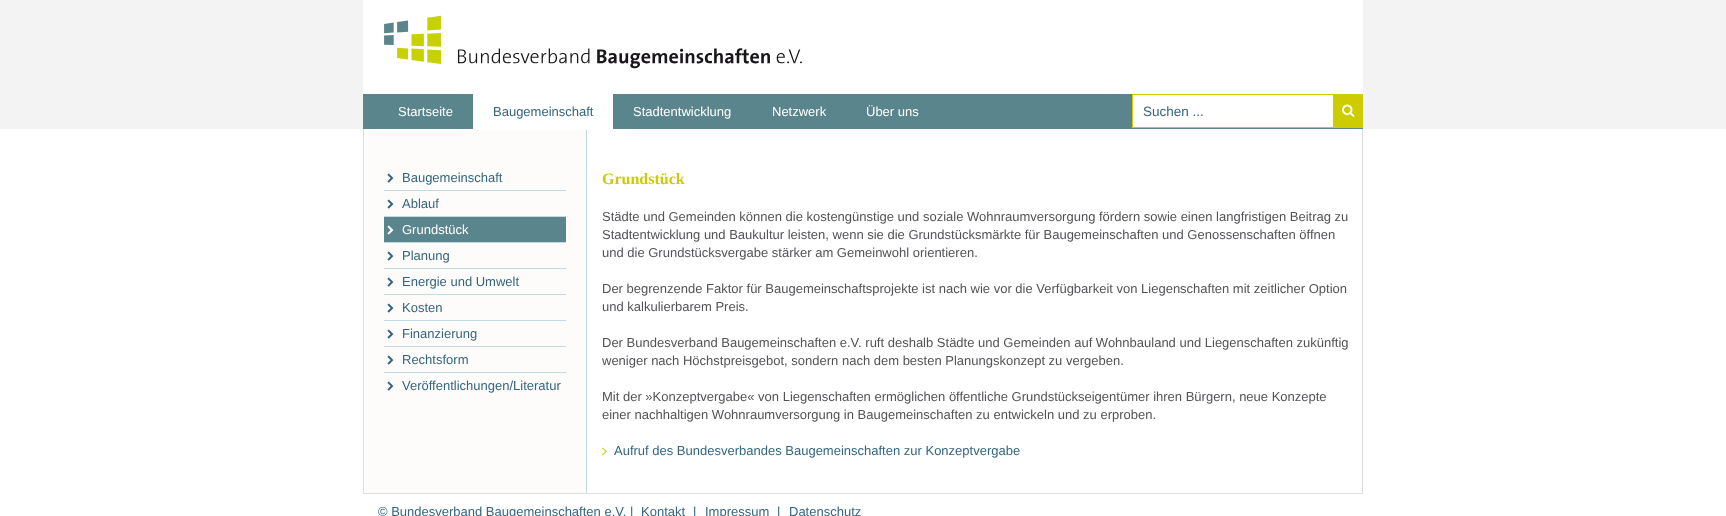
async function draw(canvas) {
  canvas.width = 1726
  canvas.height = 516
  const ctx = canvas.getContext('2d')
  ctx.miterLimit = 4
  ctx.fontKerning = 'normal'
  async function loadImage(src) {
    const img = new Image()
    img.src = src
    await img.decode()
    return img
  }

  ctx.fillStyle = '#fff'
  ctx.fillRect(0, 0, 1726, 516)
  ctx.fillStyle = '#f3f3f3'
  ctx.fillRect(0, 0, 1726, 129)
  ctx.fillStyle = '#fff'
  ctx.fillRect(363, 0, 1000, 94)
  ctx.drawImage(await loadImage('image0.png'), 384, 15, 418, 54)
  ctx.fillStyle = '#5b858c'
  ctx.fillRect(363, 94, 1000, 35)
  ctx.font = '13px Liberation Sans'
  ctx.fillStyle = '#fff'
  ctx.fillText('Startseite', 398, 116)
  ctx.fillRect(473, 94, 140, 35)
  ctx.fillStyle = '#34647f'
  ctx.fillText('Baugemeinschaft', 493, 116)
  ctx.fillStyle = '#fff'
  ctx.fillText('Stadtentwicklung', 633, 116)
  ctx.fillText('Netzwerk', 772, 116)
  ctx.fillText('Über uns', 866, 116)
  ctx.fillRect(1133, 95, 200, 32)
  ctx.strokeStyle = '#cc0'
  ctx.strokeRect(1132.5, 94.5, 230, 33)
  ctx.font = '13.5px Liberation Sans'
  ctx.fillStyle = '#34647f'
  ctx.fillText('Suchen ...', 1143, 116)
  ctx.fillStyle = '#cc0'
  ctx.fillRect(1333, 95, 29, 32)
  ctx.drawImage(await loadImage('image1.png'), 1342, 104, 13, 13)
  ctx.fillStyle = '#ddd'
  ctx.fillRect(1362, 129, 1, 365)
  ctx.fillRect(363, 493, 1000, 1)
  ctx.fillRect(363, 129, 1, 365)
  ctx.fillStyle = '#fdfcfb'
  ctx.fillRect(364, 130, 222, 363)
  ctx.fillStyle = '#c3d9e1'
  ctx.fillRect(586, 130, 1, 363)
  ctx.fillRect(384, 190, 182, 1)
  ctx.drawImage(await loadImage('image2.png'), 387, 173, 7, 10)
  ctx.font = '13px Liberation Sans'
  ctx.fillStyle = '#34647f'
  ctx.fillText('Baugemeinschaft', 402, 182)
  ctx.fillStyle = '#c3d9e1'
  ctx.fillRect(384, 216, 182, 1)
  ctx.drawImage(await loadImage('image2.png'), 387, 199, 7, 10)
  ctx.fillStyle = '#34647f'
  ctx.fillText('Ablauf', 402, 208)
  ctx.fillStyle = '#5b858c'
  ctx.fillRect(384, 217, 182, 25)
  ctx.fillStyle = '#c3d9e1'
  ctx.fillRect(384, 242, 182, 1)
  ctx.drawImage(await loadImage('image3.png'), 387, 225, 7, 10)
  ctx.fillStyle = '#fff'
  ctx.fillText('Grundstück', 402, 234)
  ctx.fillStyle = '#c3d9e1'
  ctx.fillRect(384, 268, 182, 1)
  ctx.drawImage(await loadImage('image2.png'), 387, 251, 7, 10)
  ctx.fillStyle = '#34647f'
  ctx.fillText('Planung', 402, 260)
  ctx.fillStyle = '#c3d9e1'
  ctx.fillRect(384, 294, 182, 1)
  ctx.drawImage(await loadImage('image2.png'), 387, 277, 7, 10)
  ctx.fillStyle = '#34647f'
  ctx.fillText('Energie und Umwelt', 402, 286)
  ctx.fillStyle = '#c3d9e1'
  ctx.fillRect(384, 320, 182, 1)
  ctx.drawImage(await loadImage('image2.png'), 387, 303, 7, 10)
  ctx.fillStyle = '#34647f'
  ctx.fillText('Kosten', 402, 312)
  ctx.fillStyle = '#c3d9e1'
  ctx.fillRect(384, 346, 182, 1)
  ctx.drawImage(await loadImage('image2.png'), 387, 329, 7, 10)
  ctx.fillStyle = '#34647f'
  ctx.fillText('Finanzierung', 402, 338)
  ctx.fillStyle = '#c3d9e1'
  ctx.fillRect(384, 372, 182, 1)
  ctx.drawImage(await loadImage('image2.png'), 387, 355, 7, 10)
  ctx.fillStyle = '#34647f'
  ctx.fillText('Rechtsform', 402, 364)
  ctx.drawImage(await loadImage('image2.png'), 387, 381, 7, 10)
  ctx.fillText('Veröffentlichungen/Literatur', 402, 390)
  ctx.font = 'bold 16px Liberation Serif'
  ctx.fillStyle = '#cc0'
  ctx.fillText('Grundstück', 602, 184)
  ctx.font = '13px Liberation Sans'
  ctx.fillStyle = '#535357'
  ctx.fillText('Städte und Gemeinden können die kostengünstige und soziale Wohnraumversorgung fördern sowie einen langfristigen Beitrag zu', 602, 221)
  ctx.fillText('Stadtentwicklung und Baukultur leisten, wenn sie die Grundstücksmärkte für Baugemeinschaften und Genossenschaften öffnen', 602, 239)
  ctx.fillText('und die Grundstücksvergabe stärker am Gemeinwohl orientieren.', 602, 257)
  ctx.fillText('Der begrenzende Faktor für Baugemeinschaftsprojekte ist nach wie vor die Verfügbarkeit von Liegenschaften mit zeitlicher Option', 602, 293)
  ctx.fillText('und kalkulierbarem Preis.', 602, 311)
  ctx.fillText('Der Bundesverband Baugemeinschaften e.V. ruft deshalb Städte und Gemeinden auf Wohnbauland und Liegenschaften zukünftig', 602, 347)
  ctx.fillText('weniger nach Höchstpreisgebot, sondern nach dem besten Planungskonzept zu vergeben.', 602, 365)
  ctx.fillText('Mit der »Konzeptvergabe« von Liegenschaften ermöglichen öffentliche Grundstückseigentümer ihren Bürgern, neue Konzepte', 602, 401)
  ctx.fillText('einer nachhaltigen Wohnraumversorgung in Baugemeinschaften zu entwickeln und zu erproben.', 602, 419)
  ctx.drawImage(await loadImage('image4.png'), 602, 447, 5, 9)
  ctx.fillStyle = '#34647f'
  ctx.fillText('Aufruf des Bundesverbandes Baugemeinschaften zur Konzeptvergabe', 614, 455)
  ctx.fillText('© Bundesverband Baugemeinschaften e.V. |', 378, 516)
  ctx.fillText('Kontakt', 641, 516)
  ctx.fillText('|', 693, 516)
  ctx.fillText('Impressum', 705, 516)
  ctx.fillText('|', 777, 516)
  ctx.fillText('Datenschutz', 789, 516)
}

draw(document.querySelector('canvas'))
